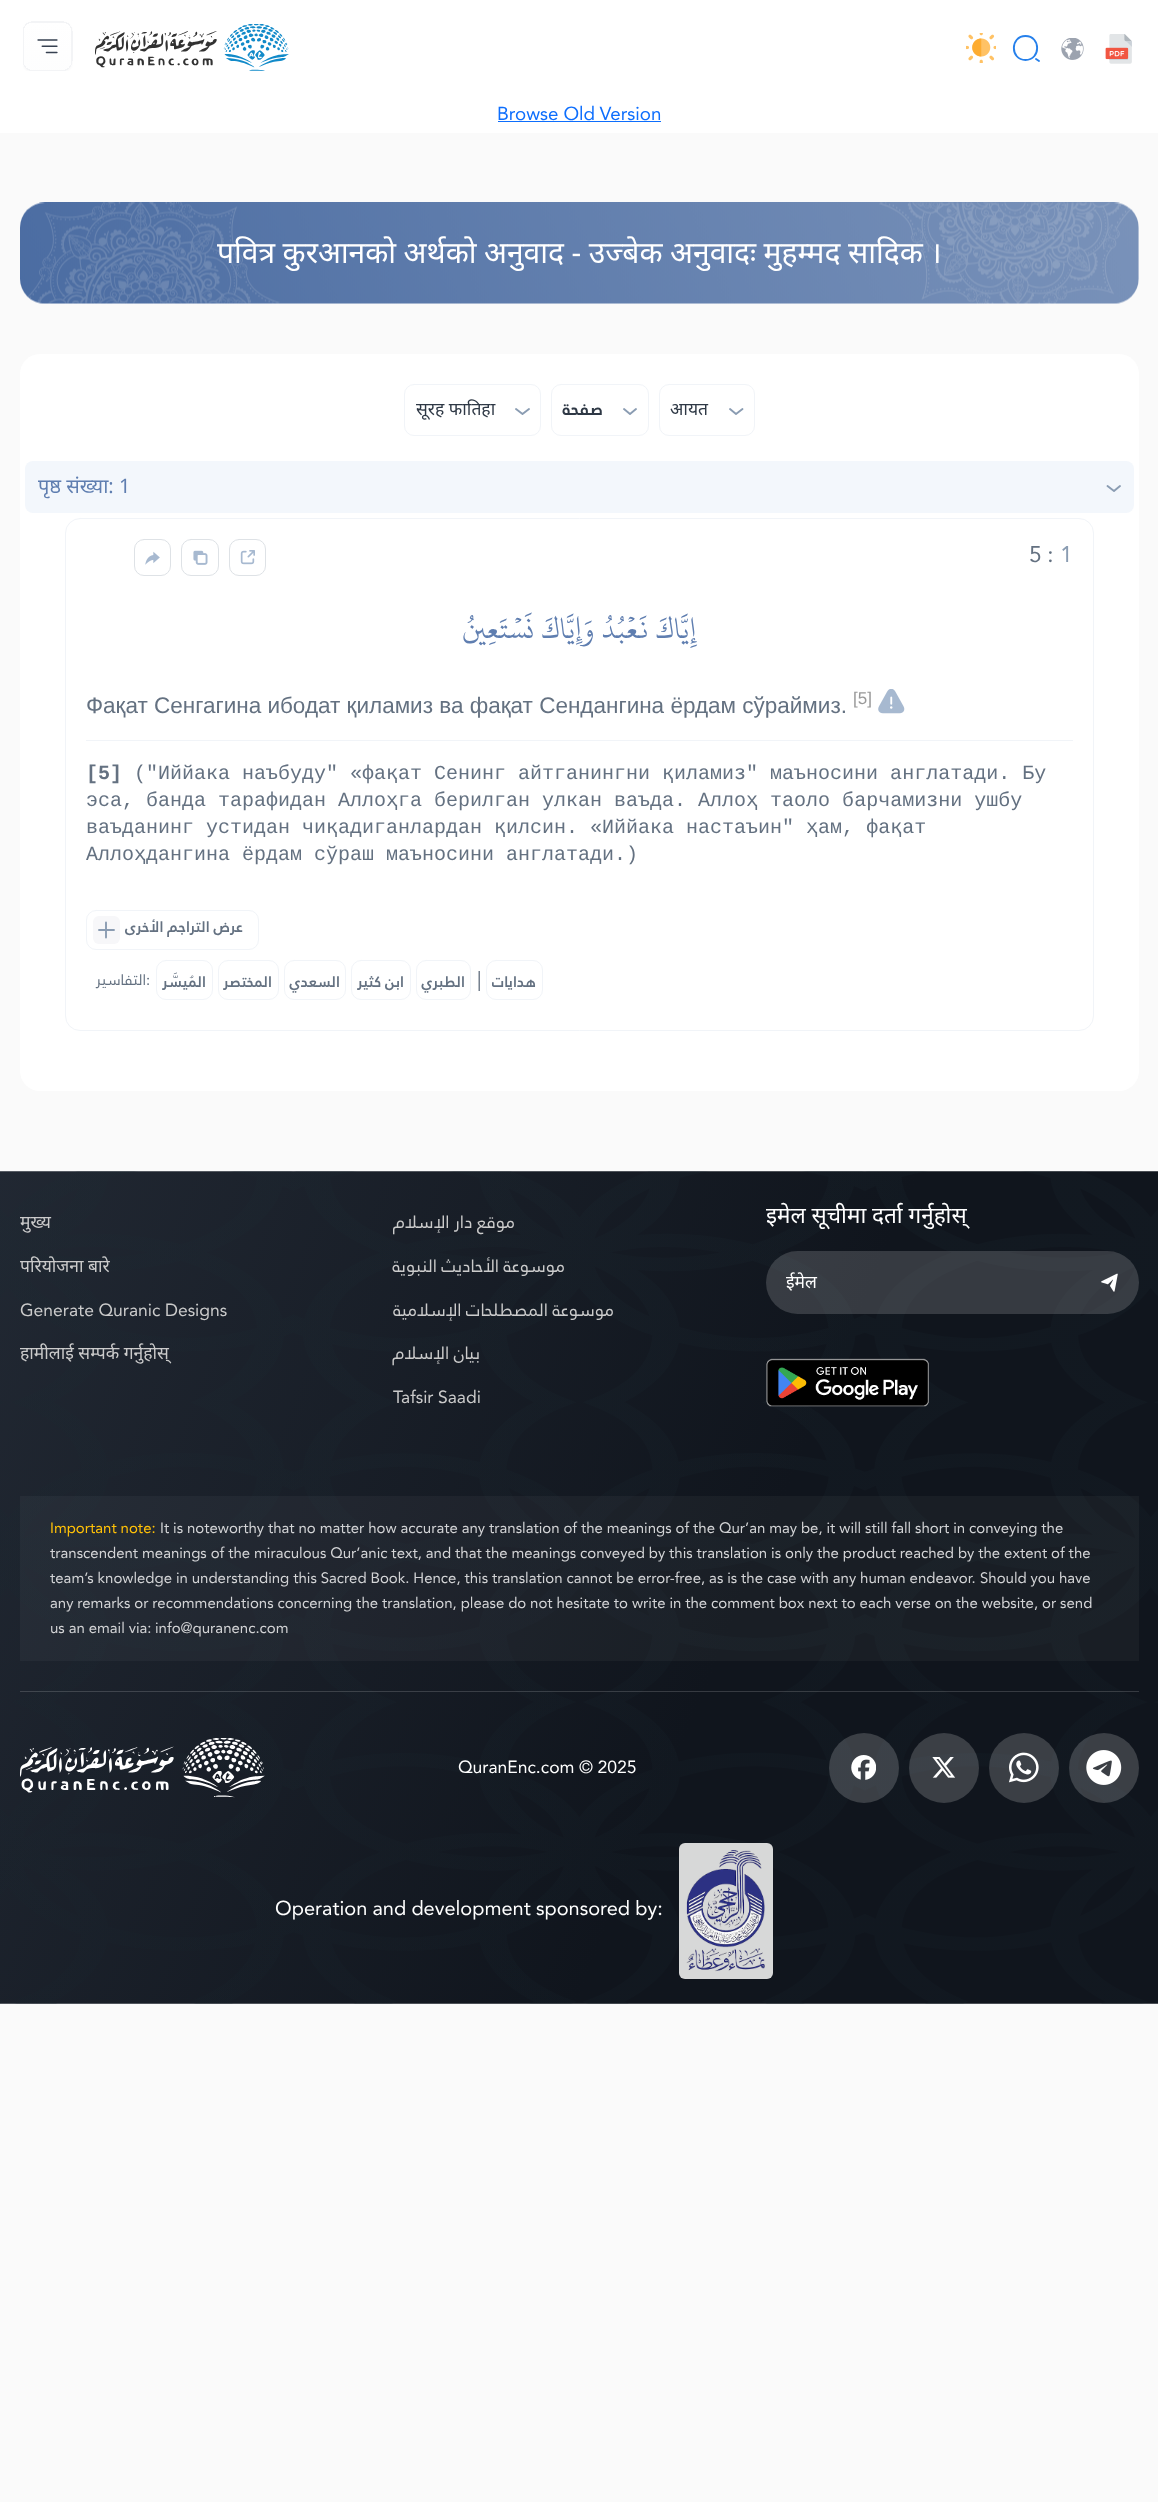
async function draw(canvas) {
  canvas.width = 1158
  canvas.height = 2502
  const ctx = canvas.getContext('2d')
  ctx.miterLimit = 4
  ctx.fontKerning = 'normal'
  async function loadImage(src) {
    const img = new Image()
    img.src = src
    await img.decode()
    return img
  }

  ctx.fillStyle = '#fafafa'
  ctx.fillRect(0, 0, 1158, 2502)
  ctx.fillStyle = '#fff'
  ctx.fillRect(0, 0, 1158, 133)
  ctx.drawImage(await loadImage('image0.png'), 23, 21, 50, 50)
  ctx.drawImage(await loadImage('image1.png'), 95, 24, 194, 47)
  ctx.drawImage(await loadImage('image2.png'), 966, 33, 30, 30)
  ctx.beginPath()
  ctx.moveTo(1025.5, 60)
  ctx.bezierCurveTo(1041, 60, 1041, 36, 1025.5, 36)
  ctx.bezierCurveTo(1010, 36, 1010, 60, 1025.5, 60)
  ctx.closePath()
  ctx.moveTo(1039, 61)
  ctx.lineTo(1036, 59)
  ctx.strokeStyle = '#2680eb'
  ctx.lineWidth = 1.9
  ctx.lineCap = 'round'
  ctx.lineJoin = 'round'
  ctx.stroke()
  ctx.drawImage(await loadImage('image3.png'), 1061, 38, 23, 22)
  ctx.drawImage(await loadImage('image4.png'), 1105, 34, 27, 30)
  ctx.font = '18.75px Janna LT'
  ctx.fillStyle = '#0d6efd'
  ctx.fillText('Browse Old Version', 497, 120)
  ctx.fillRect(498, 121, 163, 1)
  ctx.drawImage(await loadImage('image5.png'), 20, 202, 1119, 102)
  ctx.wordSpacing = '-0.25px'
  ctx.font = '30px Noto Sans'
  ctx.fillStyle = '#fff'
  ctx.fillText('पवित्र कुरआनको अर्थको अनुवाद - उज्बेक अनुवादः मुहम्मद सादिक ।', 217, 263)
  ctx.beginPath()
  ctx.roundRect(20, 354, 1119, 737, 20)
  ctx.fill()
  ctx.beginPath()
  ctx.roundRect(404.5, 384.5, 136, 51, 9.5)
  ctx.strokeStyle = '#f1f4f8'
  ctx.lineWidth = 1
  ctx.lineJoin = 'miter'
  ctx.stroke()
  ctx.wordSpacing = '0px'
  ctx.font = '17.5px Noto Sans'
  ctx.fillStyle = '#2e3845'
  ctx.fillText('सूरह फातिहा', 416, 415)
  ctx.beginPath()
  ctx.moveTo(516, 409)
  ctx.lineTo(522.5, 414)
  ctx.lineTo(529, 409)
  ctx.strokeStyle = '#8a9cb2'
  ctx.lineWidth = 1.9
  ctx.lineJoin = 'round'
  ctx.stroke()
  ctx.beginPath()
  ctx.roundRect(551.5, 384.5, 97, 51, 9.5)
  ctx.strokeStyle = '#f1f4f8'
  ctx.lineWidth = 1
  ctx.lineJoin = 'miter'
  ctx.stroke()
  ctx.direction = 'rtl'
  ctx.font = 'bold 17.5px Janna LT'
  ctx.fillText('صفحة', 603, 415)
  ctx.beginPath()
  ctx.moveTo(624, 409)
  ctx.lineTo(630, 414)
  ctx.lineTo(636, 409)
  ctx.strokeStyle = '#8a9cb2'
  ctx.lineWidth = 1.9
  ctx.lineJoin = 'round'
  ctx.stroke()
  ctx.beginPath()
  ctx.roundRect(659.5, 384.5, 95, 51, 9.5)
  ctx.strokeStyle = '#f1f4f8'
  ctx.lineWidth = 1
  ctx.lineJoin = 'miter'
  ctx.stroke()
  ctx.direction = 'ltr'
  ctx.font = '17.5px Noto Sans'
  ctx.fillText('आयत', 670, 415)
  ctx.beginPath()
  ctx.moveTo(730, 409)
  ctx.lineTo(736, 414)
  ctx.lineTo(742.5, 409)
  ctx.strokeStyle = '#8a9cb2'
  ctx.lineWidth = 1.9
  ctx.lineJoin = 'round'
  ctx.stroke()
  ctx.fillStyle = '#f3f7fc'
  ctx.beginPath()
  ctx.roundRect(25, 461, 1109, 52, 8)
  ctx.fill()
  ctx.font = '20px Noto Sans'
  ctx.fillStyle = '#5f7eb0'
  ctx.fillText('पृष्ठ संख्या: 1', 38, 493)
  ctx.beginPath()
  ctx.moveTo(1107.5, 486)
  ctx.lineTo(1114, 491)
  ctx.lineTo(1120, 486)
  ctx.stroke()
  ctx.beginPath()
  ctx.roundRect(65.5, 518.5, 1028, 512, 14.5)
  ctx.strokeStyle = '#f1f4f8'
  ctx.lineWidth = 1
  ctx.lineJoin = 'miter'
  ctx.stroke()
  ctx.beginPath()
  ctx.roundRect(134.5, 539.5, 36, 36, 9.5)
  ctx.strokeStyle = '#dee2e6'
  ctx.stroke()
  ctx.drawImage(await loadImage('image6.png'), 145, 551, 15, 14)
  ctx.beginPath()
  ctx.roundRect(181.5, 539.5, 37, 36, 9.5)
  ctx.stroke()
  ctx.drawImage(await loadImage('image7.png'), 193, 550, 15, 15)
  ctx.beginPath()
  ctx.roundRect(229.5, 539.5, 36, 36, 9.5)
  ctx.stroke()
  ctx.drawImage(await loadImage('image8.png'), 240, 550, 15, 15)
  ctx.font = '22.5px Janna LT'
  ctx.fillStyle = '#647181'
  ctx.fillText('5 :', 1029, 562)
  ctx.fillStyle = '#8a9cb2'
  ctx.fillText('1', 1060, 562)
  ctx.direction = 'rtl'
  ctx.font = '32.5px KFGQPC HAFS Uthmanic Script'
  ctx.fillStyle = '#5f7eb0'
  ctx.fillText('إِيَّاكَ نَعۡبُدُ وَإِيَّاكَ نَسۡتَعِينُ', 696, 638)
  ctx.fillStyle = '#f1f4f8'
  ctx.fillRect(86, 740, 987, 1)
  ctx.direction = 'ltr'
  ctx.font = '22.5px Liberation Sans'
  ctx.fillStyle = '#647181'
  ctx.fillText('Фақат Сенгагина ибодат қиламиз ва фақат Сендангина ёрдам сўраймиз.', 86, 713)
  ctx.font = '17px Liberation Sans'
  ctx.fillStyle = '#999'
  ctx.fillText('[5]', 853, 704)
  ctx.drawImage(await loadImage('image9.png'), 878, 689, 27, 25)
  ctx.font = 'bold 20px Liberation Mono'
  ctx.fillStyle = '#647181'
  ctx.fillText('[5]', 86, 779)
  ctx.font = '20px Liberation Mono'
  ctx.fillText('("Иййака наъбуду" «фақат Сенинг айтганингни қиламиз" маъносини англатади. Бу', 134, 779)
  ctx.fillText('эса, банда тарафидан Аллоҳга берилган улкан ваъда. Аллоҳ таоло барчамизни ушбу', 86, 806)
  ctx.fillText('ваъданинг устидан чиқадиганлардан қилсин. «Иййака настаъин" ҳам, фақат', 86, 833)
  ctx.fillText('Аллоҳдангина ёрдам сўраш маъносини англатади.)', 86, 860)
  ctx.beginPath()
  ctx.roundRect(86.5, 910.5, 172, 39, 9.5)
  ctx.strokeStyle = '#f1f4f8'
  ctx.stroke()
  ctx.fillStyle = '#f7f7f9'
  ctx.beginPath()
  ctx.roundRect(93, 916, 27, 28, 6)
  ctx.fill()
  ctx.beginPath()
  ctx.moveTo(106, 922.5)
  ctx.lineTo(106, 937.5)
  ctx.moveTo(114, 930)
  ctx.lineTo(99, 930)
  ctx.strokeStyle = '#8a9cb2'
  ctx.lineWidth = 1.9
  ctx.lineJoin = 'round'
  ctx.stroke()
  ctx.direction = 'rtl'
  ctx.font = 'bold 15px Janna LT'
  ctx.fillStyle = '#647181'
  ctx.fillText('عرض التراجم الأخرى', 243, 932)
  ctx.font = '15px Janna LT'
  ctx.fillText('التفاسير', 146, 985)
  ctx.direction = 'ltr'
  ctx.fillText(':', 146, 985)
  ctx.beginPath()
  ctx.roundRect(156.5, 960.5, 56, 39, 9.5)
  ctx.strokeStyle = '#f1f4f8'
  ctx.lineWidth = 1
  ctx.lineJoin = 'miter'
  ctx.stroke()
  ctx.direction = 'rtl'
  ctx.font = 'bold 15px Janna LT'
  ctx.fillText('المُيسَّر', 206, 987)
  ctx.beginPath()
  ctx.roundRect(218.5, 960.5, 60, 39, 9.5)
  ctx.stroke()
  ctx.fillText('المختصر', 272, 987)
  ctx.beginPath()
  ctx.roundRect(284.5, 960.5, 61, 39, 9.5)
  ctx.stroke()
  ctx.fillText('السعدي', 340, 987)
  ctx.beginPath()
  ctx.roundRect(351.5, 960.5, 59, 39, 9.5)
  ctx.stroke()
  ctx.fillText('ابن كثير', 404, 987)
  ctx.beginPath()
  ctx.roundRect(416.5, 960.5, 54, 39, 9.5)
  ctx.stroke()
  ctx.fillText('الطبري', 465, 987)
  ctx.direction = 'ltr'
  ctx.font = '20px Janna LT'
  ctx.fillText('|', 477, 986)
  ctx.beginPath()
  ctx.roundRect(486.5, 960.5, 56, 39, 9.5)
  ctx.stroke()
  ctx.direction = 'rtl'
  ctx.font = 'bold 15px Janna LT'
  ctx.fillText('هدايات', 536, 987)
  ctx.drawImage(await loadImage('image10.png'), 0, 1171, 1158, 833)
  ctx.fillStyle = '#ffffff29'
  ctx.fillRect(20, 1691, 1119, 1)
  ctx.direction = 'ltr'
  ctx.font = '17.5px Noto Sans'
  ctx.fillStyle = '#cbcbcb'
  ctx.fillText('मुख्य', 20, 1228)
  ctx.fillText('परियोजना बारे', 20, 1272)
  ctx.font = '17.5px Janna LT'
  ctx.fillText('Generate Quranic Designs', 20, 1316)
  ctx.font = '17.5px Noto Sans'
  ctx.fillText('हामीलाई सम्पर्क गर्नुहोस्', 20, 1359)
  ctx.direction = 'rtl'
  ctx.font = '17.5px Janna LT'
  ctx.fillText('موقع دار الإسلام', 515, 1228)
  ctx.fillText('موسوعة الأحاديث النبوية', 565, 1272)
  ctx.fillText('موسوعة المصطلحات الإسلامية', 614, 1316)
  ctx.fillText('بيان الإسلام', 480, 1359)
  ctx.direction = 'ltr'
  ctx.fillText('Tafsir Saadi', 393, 1403)
  ctx.font = '22.5px Noto Sans'
  ctx.fillStyle = '#fff'
  ctx.fillText('इमेल सूचीमा दर्ता गर्नुहोस्', 766, 1223)
  ctx.fillStyle = '#ffffff29'
  ctx.beginPath()
  ctx.roundRect(766, 1251, 373, 63, 31.5)
  ctx.fill()
  ctx.save()
  ctx.beginPath()
  ctx.rect(786, 1265, 273, 33)
  ctx.clip()
  ctx.font = '17.5px Noto Sans'
  ctx.fillStyle = '#fff'
  ctx.fillText('ईमेल', 786, 1288)
  ctx.restore()
  ctx.drawImage(await loadImage('image11.png'), 1101, 1273, 17, 19)
  ctx.drawImage(await loadImage('image12.png'), 766, 1358, 163, 49)
  ctx.fillStyle = '#ffffff0a'
  ctx.fillRect(20, 1496, 1119, 165)
  ctx.font = '15px Janna LT'
  ctx.fillStyle = '#ffc107'
  ctx.fillText('Important note:', 50, 1533)
  ctx.fillStyle = '#d2d3d5'
  ctx.fillText('It is noteworthy that no matter how accurate any translation of the meanings of the Qur’an may be, it will still fall short in conveying the', 160, 1533)
  ctx.fillText('transcendent meanings of the miraculous Qur’anic text, and that the meanings conveyed by this translation is only the product reached by the extent of the', 50, 1558)
  ctx.fillText('team’s knowledge in understanding this Sacred Book. Hence, this translation cannot be error-free, as is the case with any human endeavor.', 50, 1583)
  ctx.fillText('Should you have', 980, 1583)
  ctx.fillText('any remarks or recommendations concerning the translation, please do not hesitate to write in the comment box next to each verse on the website, or send', 50, 1608)
  ctx.fillText('us an email via:', 50, 1633)
  ctx.fillText('info@quranenc.com', 155, 1633)
  ctx.drawImage(await loadImage('image13.png'), 20, 1738, 245, 60)
  ctx.font = '17.5px Janna LT'
  ctx.fillStyle = '#fff'
  ctx.fillText('QuranEnc.com © 2025', 458, 1773)
  ctx.fillStyle = '#ffffff2e'
  ctx.beginPath()
  ctx.arc(864, 1768, 35, 0, 2 * Math.PI)
  ctx.fill()
  ctx.drawImage(await loadImage('image14.png'), 851, 1755, 25, 25)
  ctx.beginPath()
  ctx.arc(944, 1768, 35, 0, 2 * Math.PI)
  ctx.fill()
  ctx.drawImage(await loadImage('image15.png'), 932, 1757, 24, 21)
  ctx.beginPath()
  ctx.arc(1024, 1768, 35, 0, 2 * Math.PI)
  ctx.fill()
  ctx.drawImage(await loadImage('image16.png'), 1008, 1752, 31, 31)
  ctx.beginPath()
  ctx.arc(1104, 1768, 35, 0, 2 * Math.PI)
  ctx.fill()
  ctx.drawImage(await loadImage('image17.png'), 1086, 1750, 36, 35)
  ctx.fillStyle = '#e3e3e3f2'
  ctx.beginPath()
  ctx.roundRect(679, 1843, 94, 136, 6)
  ctx.fill()
  ctx.font = '20px Janna LT'
  ctx.fillStyle = '#fff'
  ctx.fillText('Operation and development sponsored by:', 275, 1915)
  ctx.drawImage(await loadImage('image18.png'), 686, 1850, 79, 122)
}

draw(document.querySelector('canvas'))
